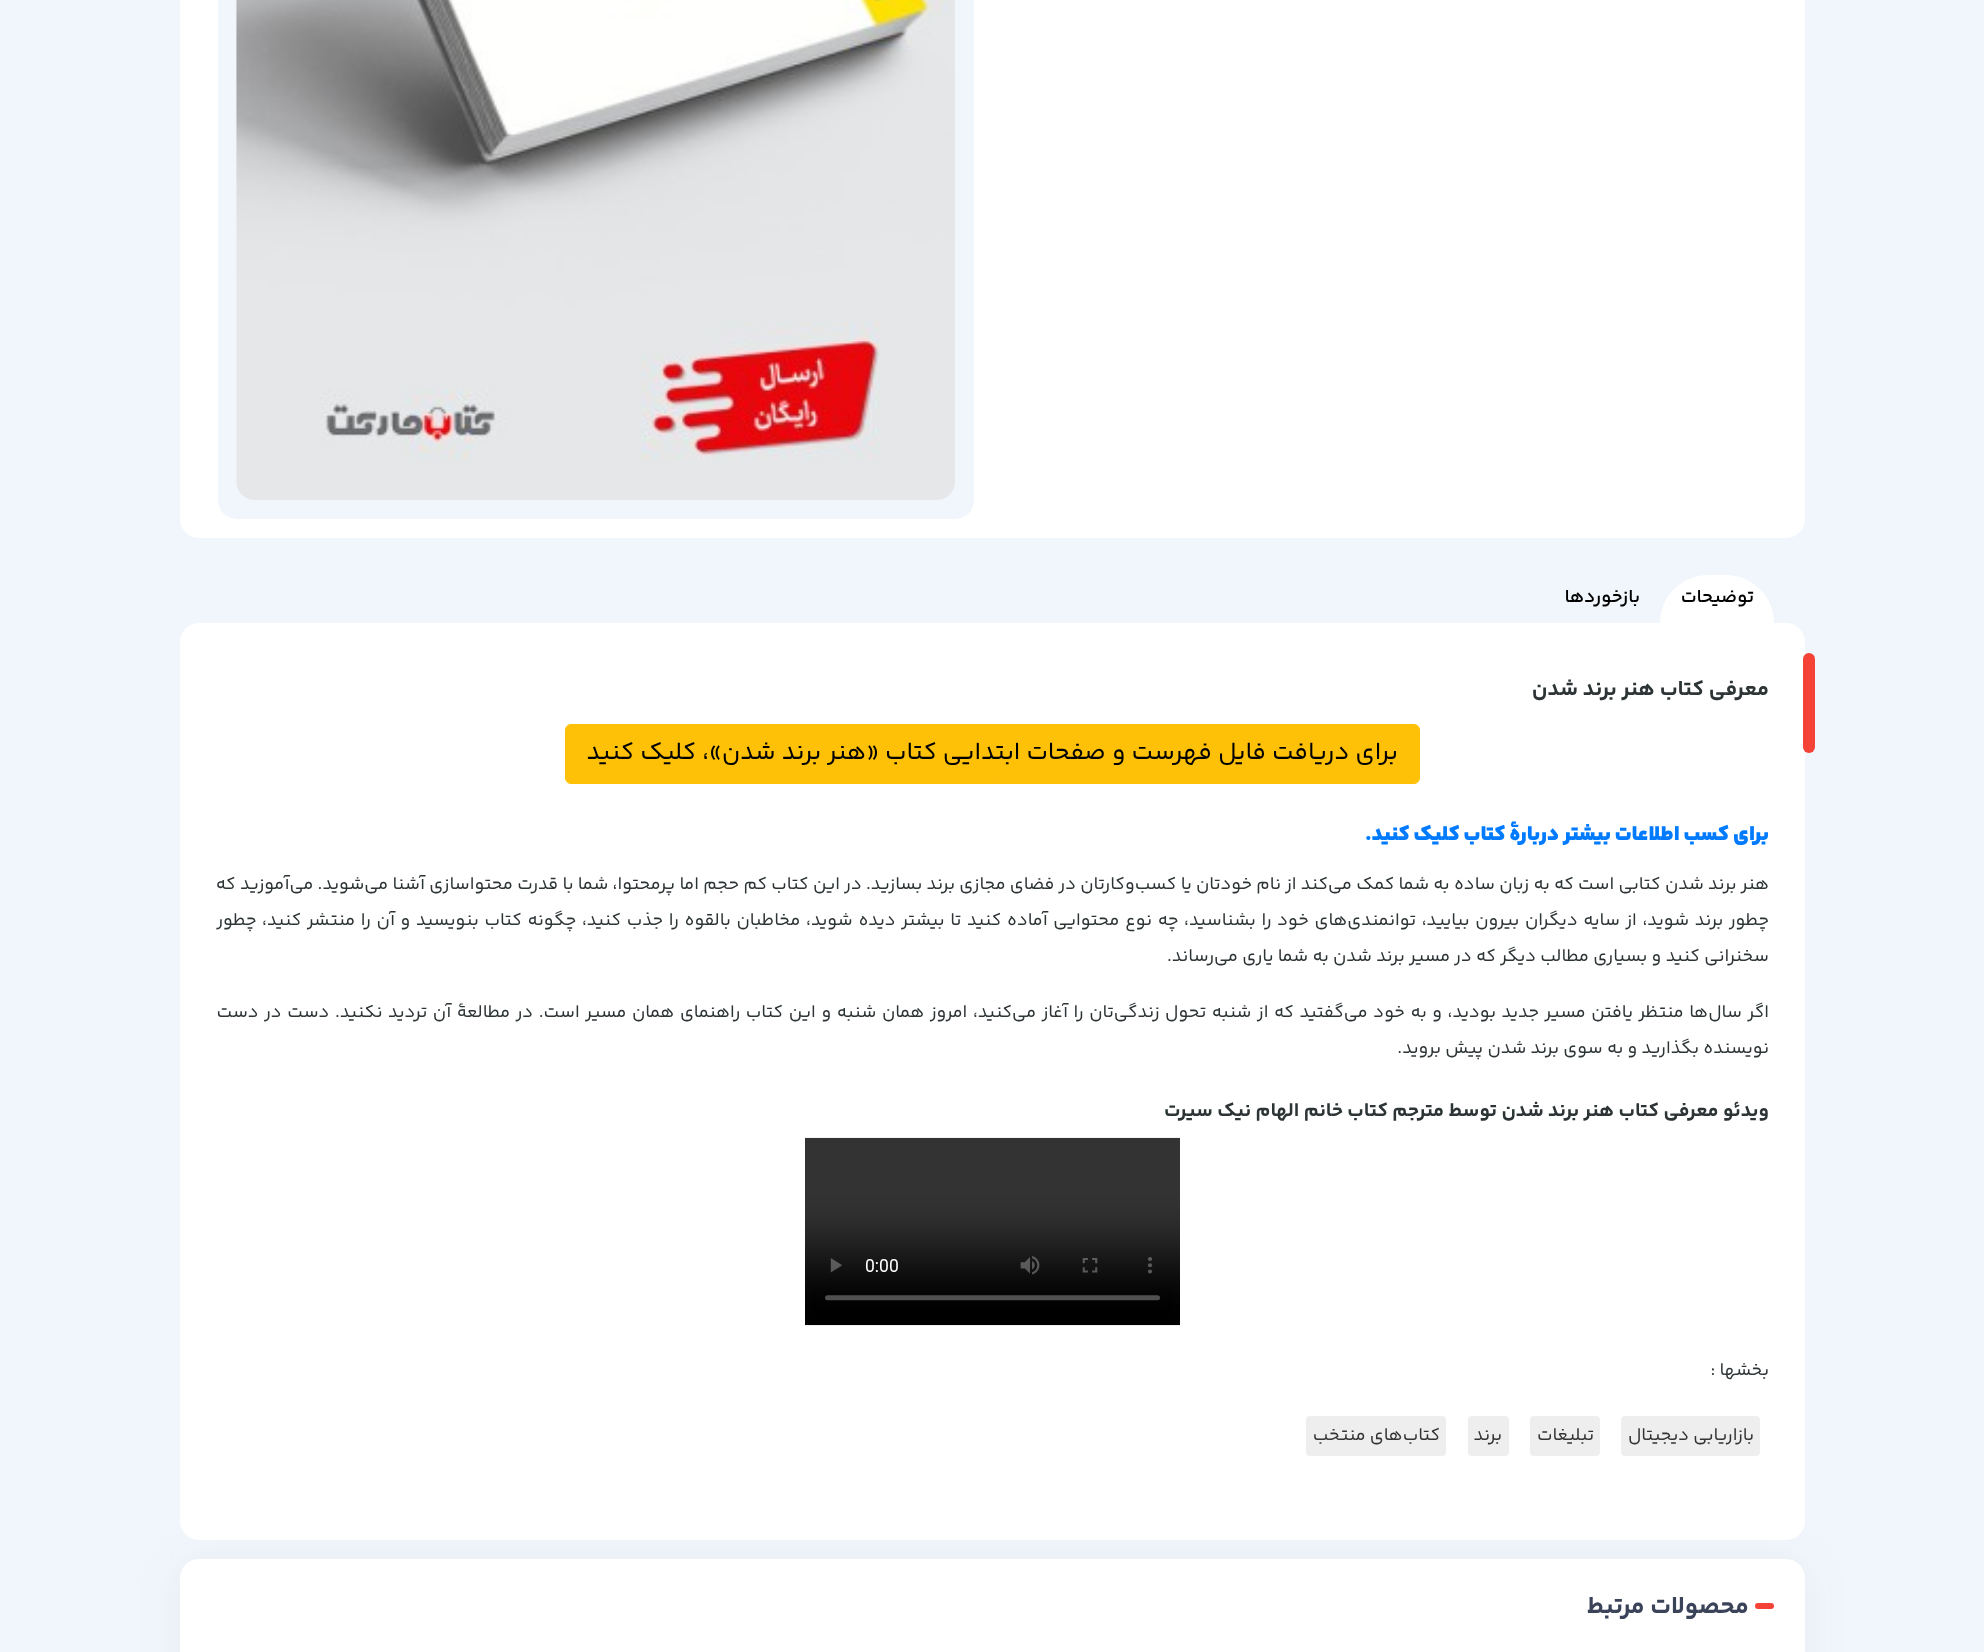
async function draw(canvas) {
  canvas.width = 1984
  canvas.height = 1652
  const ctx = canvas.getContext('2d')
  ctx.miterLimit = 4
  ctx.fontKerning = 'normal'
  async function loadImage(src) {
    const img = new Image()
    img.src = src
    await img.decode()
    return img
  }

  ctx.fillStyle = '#f1f6fc'
  ctx.fillRect(0, 0, 1984, 1652)
  ctx.fillStyle = '#fff'
  ctx.beginPath()
  ctx.roundRect(180, -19, 1625, 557, 19)
  ctx.fill()
  ctx.fillStyle = '#f1f6fc'
  ctx.beginPath()
  ctx.roundRect(218, -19, 756, 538, 19)
  ctx.fill()
  ctx.drawImage(await loadImage('image0.png'), 236, 0, 719, 500)
  ctx.fillStyle = '#3b43590f'
  ctx.filter = 'blur(22px)'
  ctx.beginPath()
  ctx.roundRect(180, 1561, 1625, 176, 19)
  ctx.fill()
  ctx.filter = 'none'
  ctx.fillStyle = '#fff'
  ctx.beginPath()
  ctx.roundRect(180, 623, 1625, 917, 19)
  ctx.fill()
  ctx.fillStyle = '#f44336'
  ctx.beginPath()
  ctx.roundRect(1803, 653, 12, 100, 6)
  ctx.fill()
  ctx.fillStyle = '#fff'
  ctx.beginPath()
  ctx.roundRect(1660, 575, 114, 48, [48, 48, 0, 0])
  ctx.fill()
  ctx.direction = 'rtl'
  ctx.font = '600 18.75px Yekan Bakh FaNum'
  ctx.fillStyle = '#000'
  ctx.fillText('توضیحات', 1754, 602)
  ctx.fillText('بازخوردها', 1640, 602)
  ctx.font = 'bold 21.6px Yekan Bakh FaNum'
  ctx.fillStyle = '#2d3436'
  ctx.fillText('معرفی کتاب هنر برند شدن', 1769, 695)
  ctx.fillStyle = '#ffc107'
  ctx.beginPath()
  ctx.roundRect(565.5, 724.5, 854, 59, 5.5)
  ctx.fill()
  ctx.strokeStyle = '#ffc107'
  ctx.stroke()
  ctx.font = '25px Yekan Bakh FaNum'
  ctx.fillStyle = '#000'
  ctx.fillText('برای دریافت فایل فهرست و صفحات ابتدایی کتاب «هنر برند شدن»، کلیک کنید', 1398, 759)
  ctx.font = '900 21.6px Yekan Bakh FaNum'
  ctx.fillStyle = '#007bff'
  ctx.fillText('برای کسب اطلاعات بیشتر دربارۀ کتاب کلیک کنید.', 1769, 840)
  ctx.font = '18px Yekan Bakh FaNum'
  ctx.fillStyle = '#2d3436'
  ctx.fillText('هنر برند شدن کتابی است که به زبان ساده به شما کمک می‌کند از نام خودتان یا کسب‌وکارتان در فضای مجازی برند بسازید. در این کتاب کم حجم اما پرمحتوا، شما با قدرت محتواسازی آشنا می‌شوید. می‌آموزید که', 1769, 889)
  ctx.wordSpacing = '1.35px'
  ctx.fillText('چطور برند شوید، از سایه دیگران بیرون بیایید، توانمندی‌های خود را بشناسید، چه نوع محتوایی آماده کنید تا بیشتر دیده شوید، مخاطبان بالقوه را جذب کنید، چگونه کتاب بنویسید و آن را منتشر کنید، چطور', 1769, 925)
  ctx.wordSpacing = '0px'
  ctx.fillText('سخنرانی کنید و بسیاری مطالب دیگر که در مسیر برند شدن به شما یاری می‌رساند.', 1769, 961)
  ctx.wordSpacing = '1.3px'
  ctx.fillText('اگر سال‌ها منتظر یافتن مسیر جدید بودید، و به خود می‌گفتید که از شنبه تحول زندگی‌تان را آغاز می‌کنید، امروز همان شنبه و این کتاب راهنمای همان مسیر است. در مطالعۀ آن تردید نکنید. دست در دست', 1769, 1017)
  ctx.wordSpacing = '0px'
  ctx.fillText('نویسنده بگذارید و به سوی برند شدن پیش بروید.', 1769, 1053)
  ctx.font = 'bold 19.8px Yekan Bakh FaNum'
  ctx.fillText('ویدئو معرفی کتاب هنر برند شدن توسط مترجم کتاب خانم الهام نیک سیرت', 1769, 1116)
  ctx.drawImage(await loadImage('image1.png'), 805, 1137, 375, 189)
  ctx.font = '18px Yekan Bakh FaNum'
  ctx.fillText('بخشها :', 1769, 1375)
  ctx.fillStyle = '#eee'
  ctx.beginPath()
  ctx.roundRect(1621, 1416, 139, 40, 4)
  ctx.fill()
  ctx.fillStyle = '#333'
  ctx.fillText('بازاریابی دیجیتال', 1754, 1440)
  ctx.fillStyle = '#eee'
  ctx.beginPath()
  ctx.roundRect(1530, 1416, 70, 40, 4)
  ctx.fill()
  ctx.fillStyle = '#333'
  ctx.fillText('تبلیغات', 1594, 1440)
  ctx.fillStyle = '#eee'
  ctx.beginPath()
  ctx.roundRect(1468, 1416, 41, 40, 4)
  ctx.fill()
  ctx.fillStyle = '#333'
  ctx.fillText('برند', 1502, 1440)
  ctx.fillStyle = '#eee'
  ctx.beginPath()
  ctx.roundRect(1306, 1416, 140, 40, 4)
  ctx.fill()
  ctx.fillStyle = '#333'
  ctx.fillText('کتاب‌های منتخب', 1440, 1440)
  ctx.fillStyle = '#fff'
  ctx.beginPath()
  ctx.roundRect(180, 1559, 1625, 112, 19)
  ctx.fill()
  ctx.fillStyle = '#f44336'
  ctx.beginPath()
  ctx.roundRect(1755, 1603, 19, 6, 3)
  ctx.fill()
  ctx.font = 'bold 25px Yekan Bakh FaNum'
  ctx.fillStyle = '#3b4359'
  ctx.fillText('محصولات مرتبط', 1749, 1613)
}

draw(document.querySelector('canvas'))
